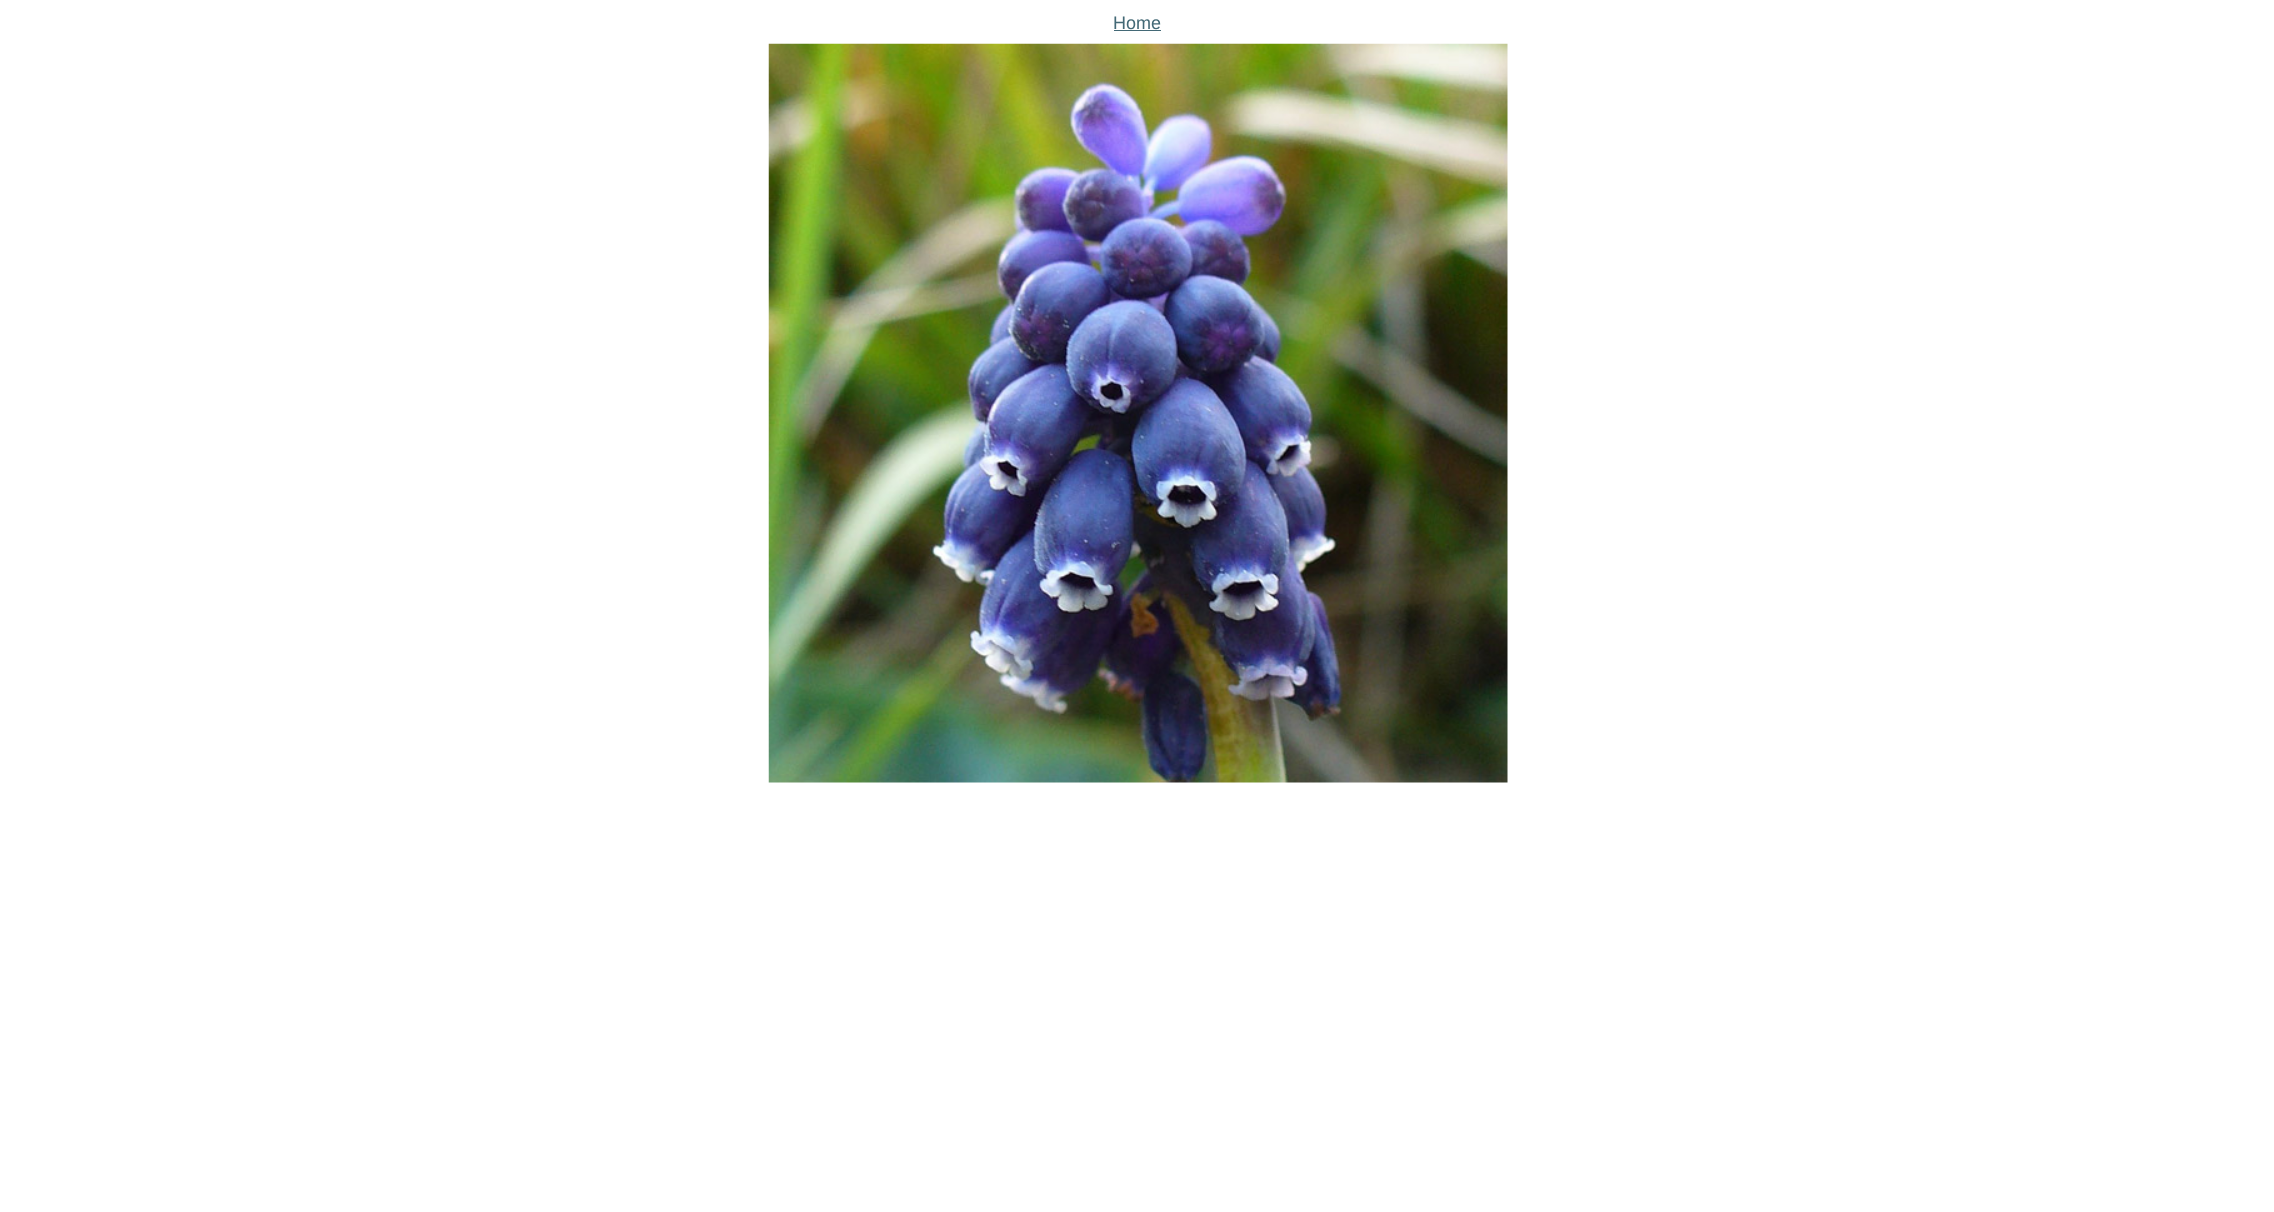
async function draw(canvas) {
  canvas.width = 2274
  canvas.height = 1212
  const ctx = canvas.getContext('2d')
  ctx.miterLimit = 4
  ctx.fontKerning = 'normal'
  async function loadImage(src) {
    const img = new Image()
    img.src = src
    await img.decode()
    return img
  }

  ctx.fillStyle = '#fff'
  ctx.fillRect(0, 0, 2274, 1212)
  ctx.font = '18px Liberation Sans'
  ctx.fillStyle = '#436976'
  ctx.fillText('Home', 1113, 29)
  ctx.fillRect(1114, 30, 47, 1)
  ctx.drawImage(await loadImage('image0.png'), 768, 43, 740, 740)
}

draw(document.querySelector('canvas'))
